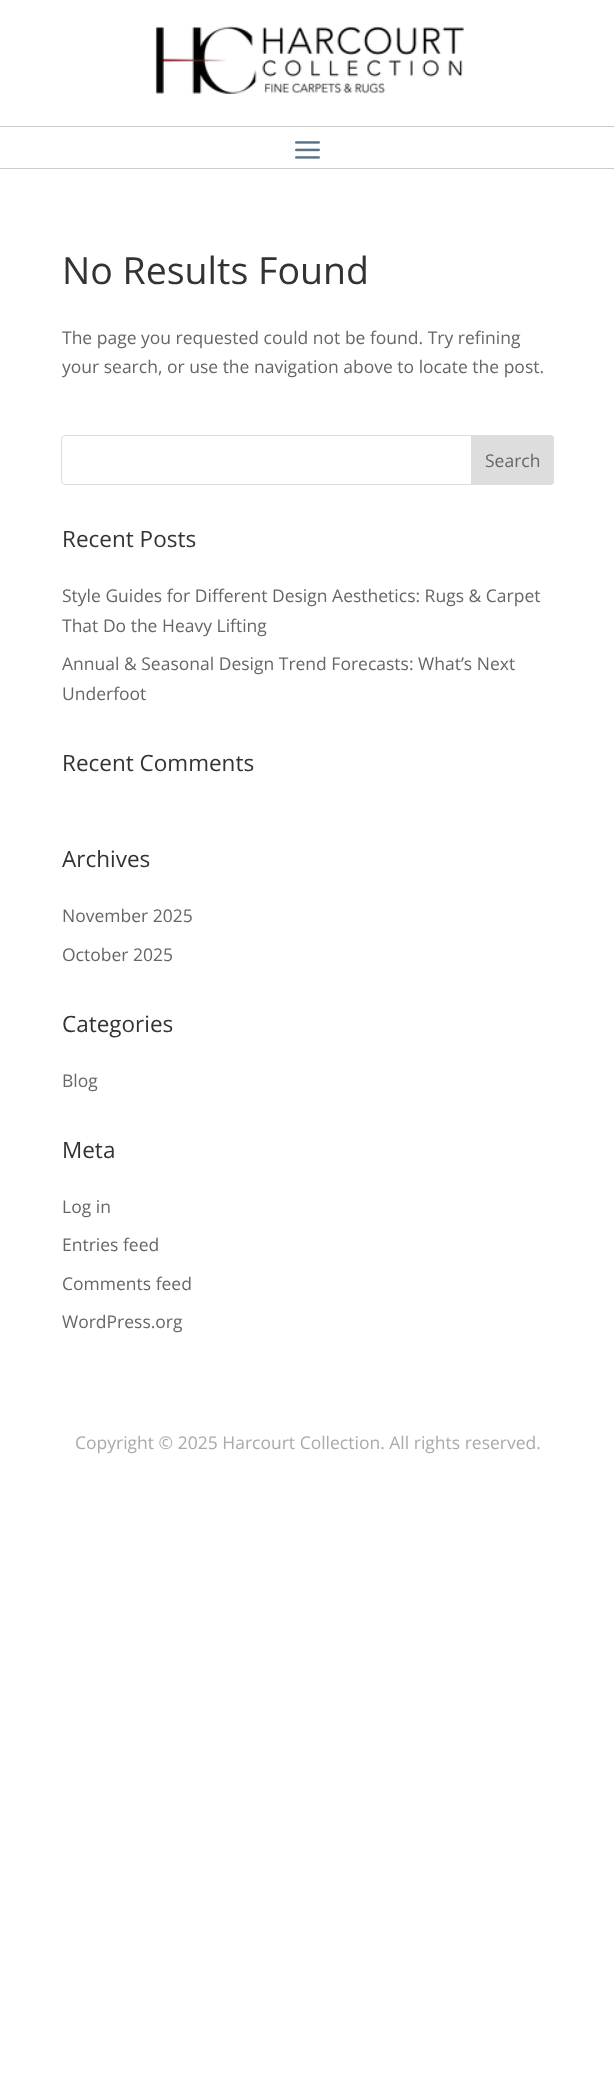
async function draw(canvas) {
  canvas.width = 614
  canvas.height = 2097
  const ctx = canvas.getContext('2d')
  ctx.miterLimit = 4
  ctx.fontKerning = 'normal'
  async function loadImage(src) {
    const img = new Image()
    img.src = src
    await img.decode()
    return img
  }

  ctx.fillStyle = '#fff'
  ctx.fillRect(0, 0, 614, 2097)
  ctx.drawImage(await loadImage('image0.png'), 155, 26, 309, 68)
  ctx.fillStyle = '#ccc'
  ctx.fillRect(0, 126, 614, 1)
  ctx.fillRect(0, 168, 614, 1)
  ctx.drawImage(await loadImage('image1.png'), 295, 141, 25, 18)
  ctx.font = '37.5px Open Sans'
  ctx.fillStyle = '#333'
  ctx.fillText('No Results Found', 62, 284)
  ctx.font = '17.5px Open Sans'
  ctx.fillStyle = '#666'
  ctx.fillText('The page you requested could not be found. Try refining', 62, 344)
  ctx.fillText('your search, or use the navigation above to locate the post.', 62, 373)
  ctx.beginPath()
  ctx.roundRect(61.5, 435.5, 492, 49, 3.5)
  ctx.strokeStyle = '#ddd'
  ctx.stroke()
  ctx.fillStyle = '#ddd'
  ctx.beginPath()
  ctx.roundRect(471.5, 435.5, 82, 49, [0, 3.5, 3.5, 0])
  ctx.fill()
  ctx.stroke()
  ctx.fillStyle = '#666'
  ctx.fillText('Search', 485, 467)
  ctx.font = '22.5px Open Sans'
  ctx.fillStyle = '#333'
  ctx.fillText('Recent Posts', 62, 547)
  ctx.font = '17.5px Open Sans'
  ctx.fillStyle = '#666'
  ctx.fillText('Style Guides for Different Design Aesthetics: Rugs & Carpet', 62, 602)
  ctx.fillText('That Do the Heavy Lifting', 62, 632)
  ctx.fillText('Annual & Seasonal Design Trend Forecasts: What’s Next', 62, 670)
  ctx.fillText('Underfoot', 62, 700)
  ctx.font = '22.5px Open Sans'
  ctx.fillStyle = '#333'
  ctx.fillText('Recent Comments', 62, 771)
  ctx.fillText('Archives', 62, 867)
  ctx.font = '17.5px Open Sans'
  ctx.fillStyle = '#666'
  ctx.fillText('November 2025', 62, 922)
  ctx.fillText('October 2025', 62, 961)
  ctx.font = '22.5px Open Sans'
  ctx.fillStyle = '#333'
  ctx.fillText('Categories', 62, 1032)
  ctx.font = '17.5px Open Sans'
  ctx.fillStyle = '#666'
  ctx.fillText('Blog', 62, 1087)
  ctx.font = '22.5px Open Sans'
  ctx.fillStyle = '#333'
  ctx.fillText('Meta', 62, 1158)
  ctx.font = '17.5px Open Sans'
  ctx.fillStyle = '#666'
  ctx.fillText('Log in', 62, 1213)
  ctx.fillText('Entries feed', 62, 1251)
  ctx.fillText('Comments feed', 62, 1290)
  ctx.fillText('WordPress.org', 62, 1328)
  ctx.fillStyle = '#aaa'
  ctx.fillText('Copyright © 2025 Harcourt Collection. All rights reserved.', 75, 1449)
}

draw(document.querySelector('canvas'))
